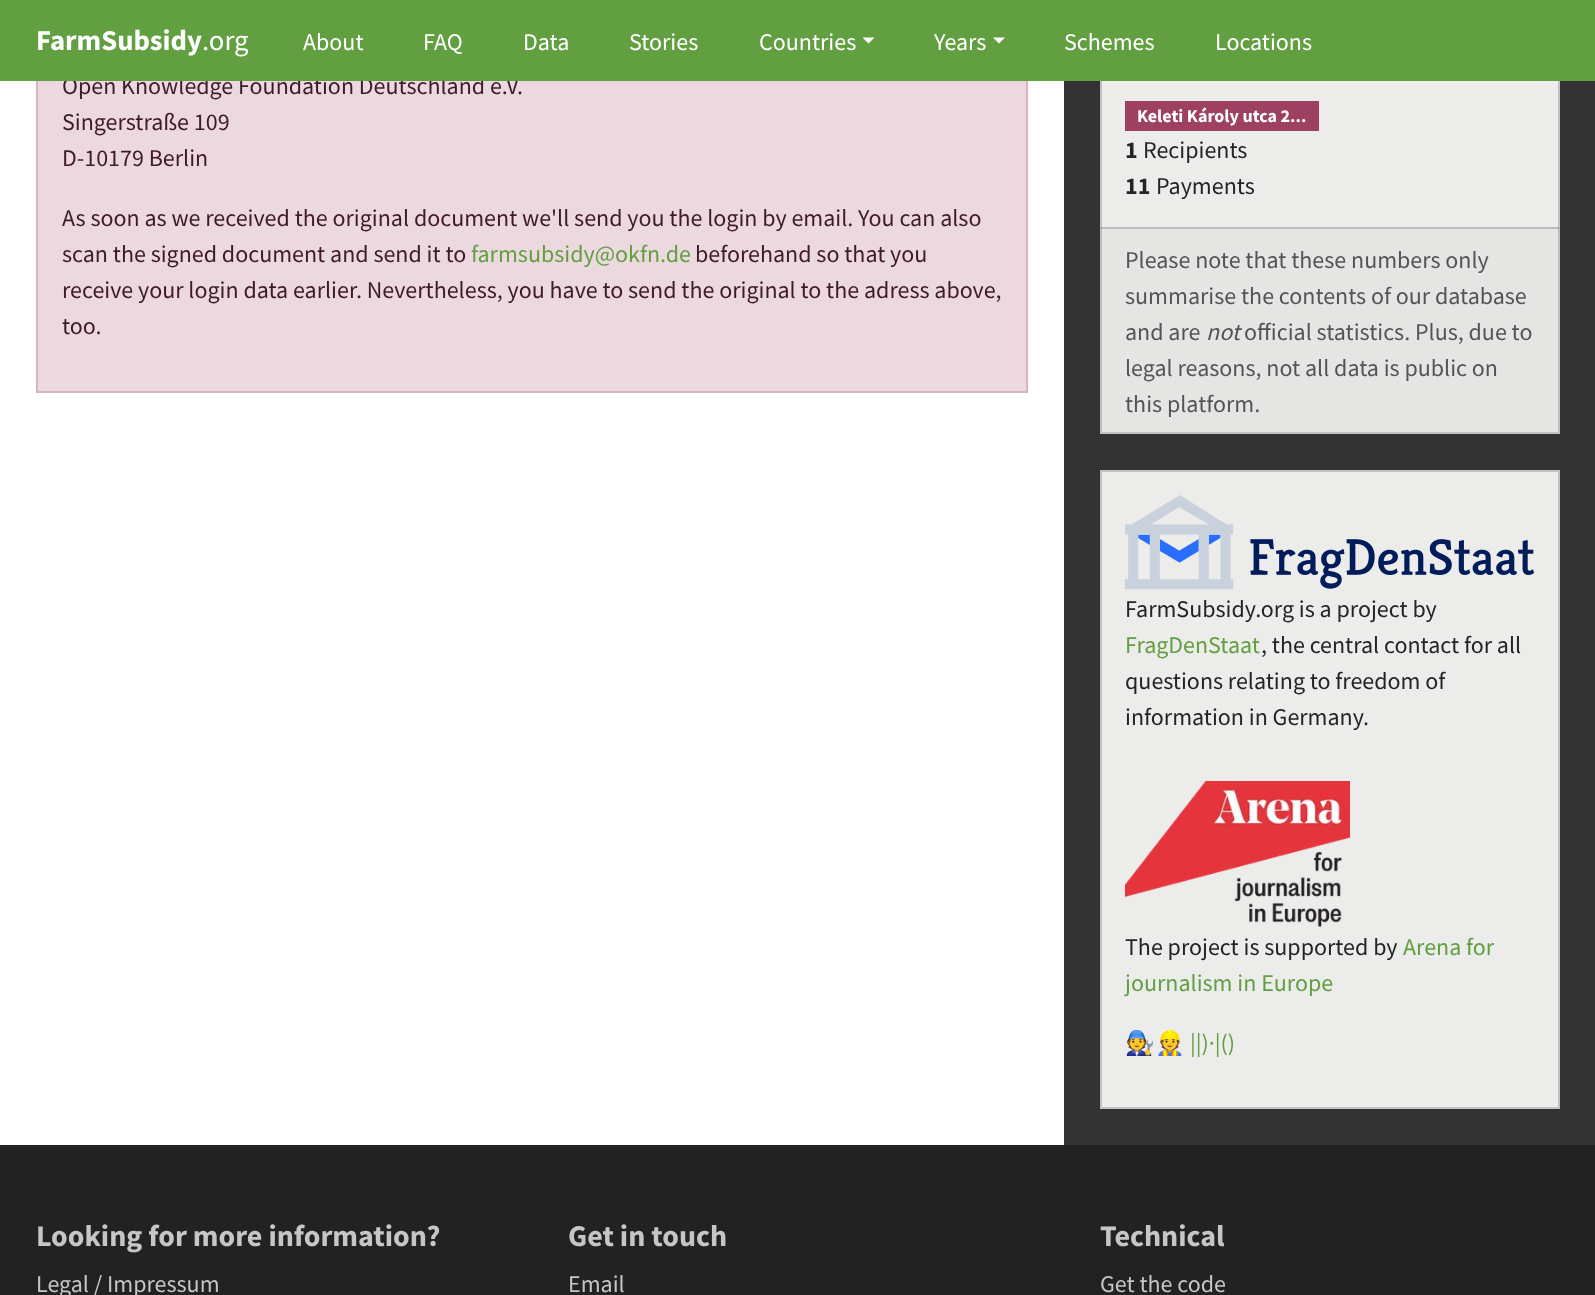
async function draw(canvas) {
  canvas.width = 1595
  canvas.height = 1295
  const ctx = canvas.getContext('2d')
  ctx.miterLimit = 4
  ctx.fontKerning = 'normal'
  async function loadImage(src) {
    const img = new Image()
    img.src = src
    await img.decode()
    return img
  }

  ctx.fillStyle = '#333'
  ctx.fillRect(0, 0, 1595, 1295)
  ctx.fillStyle = '#fff'
  ctx.fillRect(0, 81, 1064, 1064)
  ctx.fillStyle = '#ecd9df'
  ctx.fillRect(38, 81, 988, 310)
  ctx.strokeStyle = '#d8b3c0'
  ctx.lineWidth = 2
  ctx.strokeRect(37, -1, 990, 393)
  ctx.font = '24px Source Sans Pro'
  ctx.fillStyle = '#3f1a27'
  ctx.fillText('Open Knowledge Foundation Deutschland e.V.', 62, 94)
  ctx.fillStyle = '#ececeb'
  ctx.fillRect(1102, 81, 456, 351)
  ctx.strokeStyle = '#c2c2c2'
  ctx.strokeRect(1101, -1, 458, 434)
  ctx.fillStyle = '#629f41'
  ctx.fillRect(0, 0, 1595, 81)
  ctx.font = 'bold 28.75px Source Sans Pro'
  ctx.fillStyle = '#fff'
  ctx.fillText('FarmSubsidy', 36, 50)
  ctx.font = '28.75px Source Sans Pro'
  ctx.fillText('.org', 202, 50)
  ctx.font = '24px Source Sans Pro'
  ctx.fillText('About', 303, 50)
  ctx.fillText('FAQ', 423, 50)
  ctx.fillText('Data', 523, 50)
  ctx.fillText('Stories', 629, 50)
  ctx.fillText('Countries', 759, 50)
  ctx.beginPath()
  ctx.moveTo(862.5, 37.5)
  ctx.lineTo(874.5, 37.5)
  ctx.lineTo(868.5, 43.5)
  ctx.closePath()
  ctx.fill()
  ctx.fillText('Years', 934, 50)
  ctx.beginPath()
  ctx.moveTo(993, 37.5)
  ctx.lineTo(1005, 37.5)
  ctx.lineTo(999, 43.5)
  ctx.closePath()
  ctx.fill()
  ctx.fillText('Schemes', 1064, 50)
  ctx.fillText('Locations', 1215, 50)
  ctx.fillStyle = '#3f1a27'
  ctx.fillText('Singerstraße 109', 62, 130)
  ctx.fillText('D-10179 Berlin', 62, 166)
  ctx.fillText('As soon as we received the original document we\'ll send you the login by email. You can also', 62, 226)
  ctx.fillText('scan the signed document and send it to', 62, 262)
  ctx.fillStyle = '#629f41'
  ctx.fillText('farmsubsidy@okfn.de', 471, 262)
  ctx.fillStyle = '#3f1a27'
  ctx.fillText('beforehand so that you', 695, 262)
  ctx.fillText('receive your login data earlier. Nevertheless, you have to send the original to the adress above,', 62, 298)
  ctx.fillText('too.', 62, 334)
  ctx.fillStyle = '#9e4061'
  ctx.fillRect(1125, 101, 194, 30)
  ctx.font = 'bold 18px Source Sans Pro'
  ctx.fillStyle = '#fff'
  ctx.fillText('Keleti Károly utca 2...', 1137, 122)
  ctx.font = 'bold 24px Source Sans Pro'
  ctx.fillStyle = '#212529'
  ctx.fillText('1', 1125, 158)
  ctx.font = '24px Source Sans Pro'
  ctx.fillText('Recipients', 1143, 158)
  ctx.font = 'bold 24px Source Sans Pro'
  ctx.fillText('11', 1125, 194)
  ctx.font = '24px Source Sans Pro'
  ctx.fillText('Payments', 1156, 194)
  ctx.fillStyle = '#21252908'
  ctx.fillRect(1101, 227, 458, 205)
  ctx.fillStyle = '#0000002e'
  ctx.fillRect(1101, 227, 458, 2)
  ctx.fillStyle = '#525558'
  ctx.fillText('Please note that these numbers only', 1125, 268)
  ctx.fillText('summarise the contents of our database', 1125, 304)
  ctx.fillText('and are', 1125, 340)
  ctx.font = 'italic 24px Source Sans Pro'
  ctx.fillText('not', 1206, 340)
  ctx.font = '24px Source Sans Pro'
  ctx.fillText('official statistics. Plus, due to', 1244, 340)
  ctx.fillText('legal reasons, not all data is public on', 1125, 376)
  ctx.fillText('this platform.', 1125, 412)
  ctx.fillStyle = '#ececeb'
  ctx.beginPath()
  ctx.rect(1101, 471, 458, 637)
  ctx.fill()
  ctx.stroke()
  ctx.drawImage(await loadImage('image0.png'), 1125, 495, 409, 95)
  ctx.fillStyle = '#212529'
  ctx.fillText('FarmSubsidy.org is a project by', 1125, 617)
  ctx.fillStyle = '#629f41'
  ctx.fillText('FragDenStaat', 1125, 653)
  ctx.fillStyle = '#212529'
  ctx.fillText(', the central contact for all', 1261, 653)
  ctx.fillText('questions relating to freedom of', 1125, 689)
  ctx.fillText('information in Germany.', 1125, 725)
  ctx.drawImage(await loadImage('image1.png'), 1125, 781, 225, 146)
  ctx.fillText('The project is supported by', 1125, 955)
  ctx.fillStyle = '#629f41'
  ctx.fillText('Arena for', 1403, 955)
  ctx.fillText('journalism in Europe', 1125, 991)
  ctx.font = '24px Noto Color Emoji'
  ctx.fillStyle = '#212529'
  ctx.fillText('🧑‍🔧👷', 1125, 1051)
  ctx.font = '24px Source Sans Pro'
  ctx.fillStyle = '#629f41'
  ctx.fillText('||)·|()', 1190, 1051)
  ctx.fillStyle = '#222'
  ctx.fillRect(0, 1145, 1595, 150)
  ctx.font = 'bold 30px Source Sans Pro'
  ctx.fillStyle = '#c6c6c4'
  ctx.fillText('Looking for more information?', 36, 1246)
  ctx.font = '24px Source Sans Pro'
  ctx.fillText('Legal / Impressum', 36, 1292)
  ctx.font = 'bold 30px Source Sans Pro'
  ctx.fillText('Get in touch', 568, 1246)
  ctx.font = '24px Source Sans Pro'
  ctx.fillText('Email', 568, 1292)
  ctx.font = 'bold 30px Source Sans Pro'
  ctx.fillText('Technical', 1100, 1246)
  ctx.font = '24px Source Sans Pro'
  ctx.fillText('Get the code', 1100, 1292)
}

draw(document.querySelector('canvas'))
